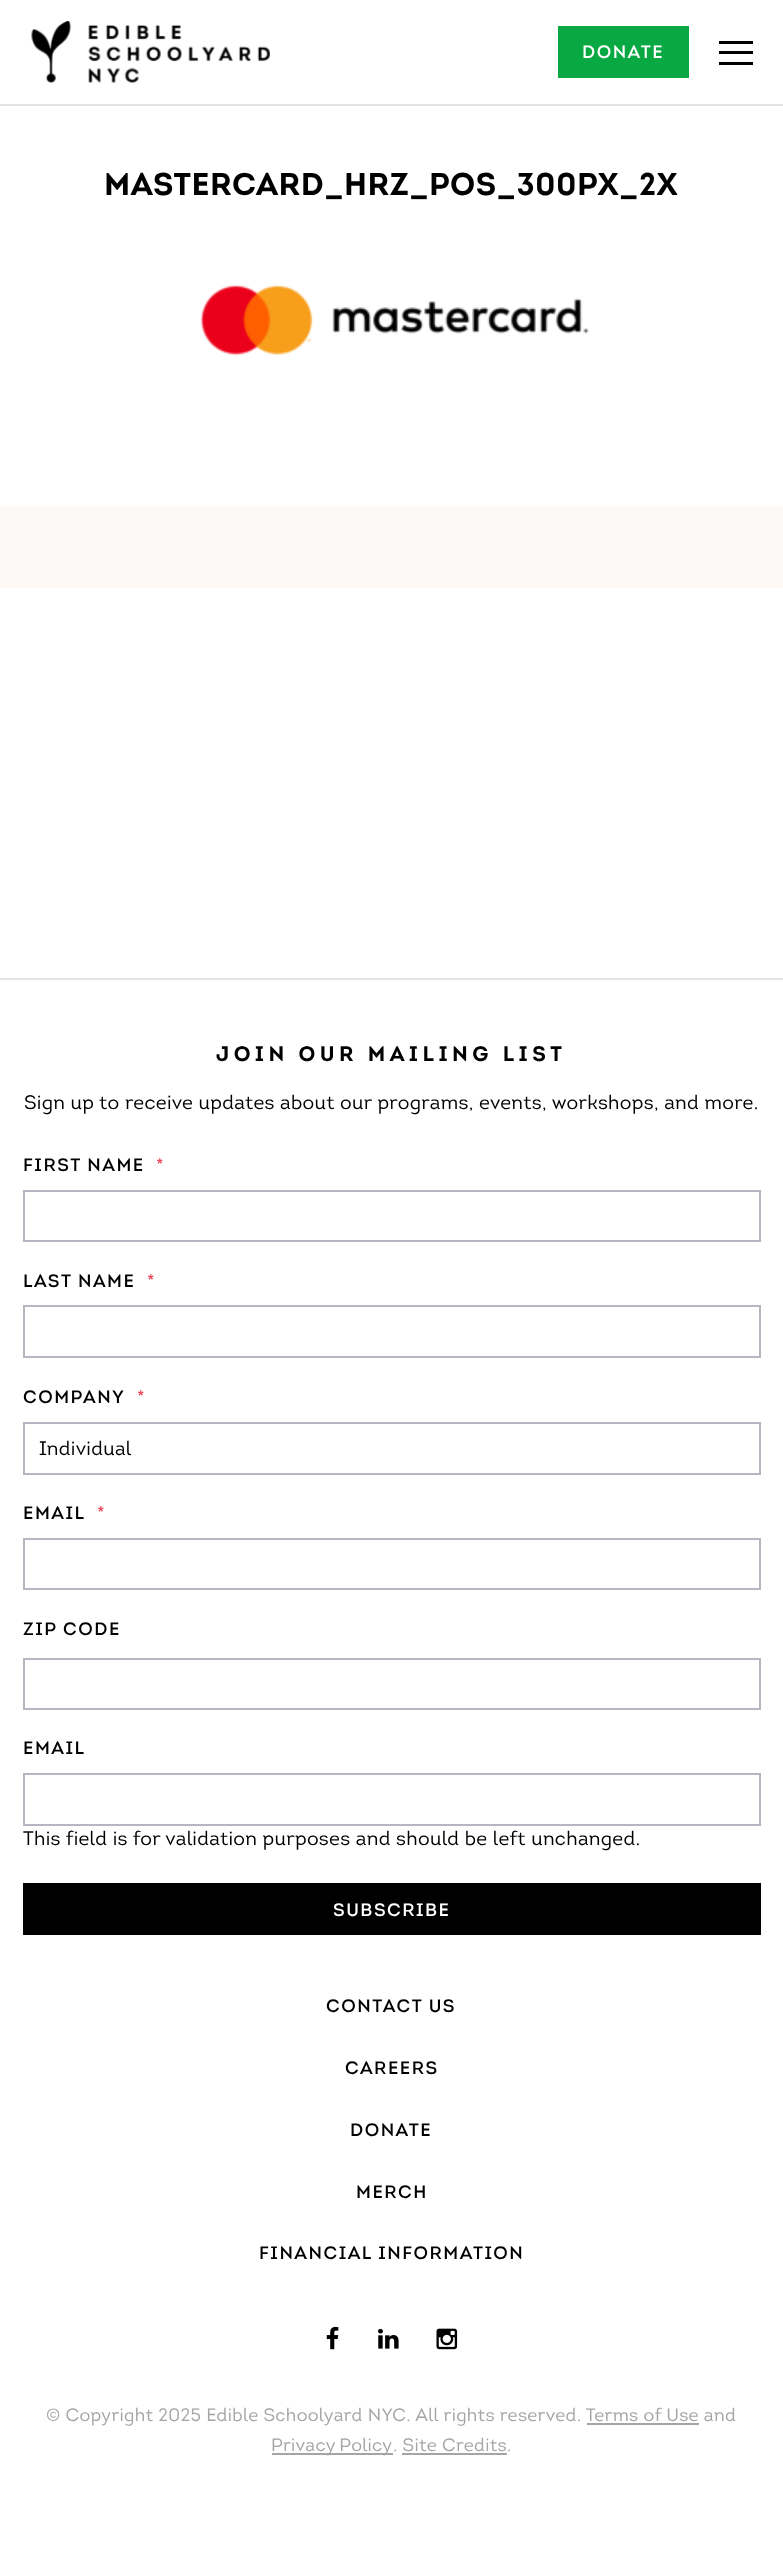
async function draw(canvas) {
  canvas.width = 783
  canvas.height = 2551
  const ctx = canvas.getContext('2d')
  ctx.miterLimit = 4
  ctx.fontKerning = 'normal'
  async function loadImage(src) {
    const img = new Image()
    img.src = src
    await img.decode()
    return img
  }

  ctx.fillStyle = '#fff'
  ctx.fillRect(0, 0, 783, 2551)
  ctx.fillStyle = '#e4e4e4'
  ctx.fillRect(0, 104, 783, 2)
  ctx.drawImage(await loadImage('image0.png'), 31, 21, 239, 62)
  ctx.fillStyle = '#08a842'
  ctx.fillRect(558, 26, 131, 52)
  ctx.letterSpacing = '1.5px'
  ctx.font = '18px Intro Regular'
  ctx.fillStyle = '#fff'
  ctx.fillText('DONATE', 582, 58)
  ctx.fillStyle = '#000'
  ctx.fillRect(719, 41, 34, 3)
  ctx.fillRect(719, 51, 34, 3)
  ctx.fillRect(719, 62, 34, 3)
  ctx.letterSpacing = '0.45px'
  ctx.font = 'bold 31.5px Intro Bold'
  ctx.fillText('MASTERCARD_HRZ_POS_300PX_2X', 104, 195)
  ctx.drawImage(await loadImage('image1.png'), 200, 285, 389, 71)
  ctx.fillStyle = '#fcf8f5'
  ctx.fillRect(0, 506, 783, 82)
  ctx.fillStyle = '#e4e4e4'
  ctx.fillRect(0, 978, 783, 2)
  ctx.letterSpacing = '4.5px'
  ctx.font = 'bold 21px Intro Bold'
  ctx.fillStyle = '#000'
  ctx.fillText('JOIN OUR MAILING LIST', 216, 1061)
  ctx.letterSpacing = '0.3px'
  ctx.font = '19.5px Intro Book'
  ctx.fillText('Sign up to receive updates about our programs, events, workshops, and more.', 24, 1109)
  ctx.letterSpacing = '1.5px'
  ctx.font = '18px Intro Regular'
  ctx.fillText('FIRST NAME', 23, 1171)
  ctx.fillStyle = '#ed4d5a'
  ctx.fillText('*', 156, 1171)
  ctx.strokeStyle = '#b8b5c1'
  ctx.lineWidth = 2
  ctx.strokeRect(24, 1191, 736, 50)
  ctx.fillStyle = '#000'
  ctx.fillText('LAST NAME', 23, 1287)
  ctx.fillStyle = '#ed4d5a'
  ctx.fillText('*', 147, 1287)
  ctx.strokeRect(24, 1306, 736, 51)
  ctx.fillStyle = '#000'
  ctx.fillText('COMPANY', 23, 1403)
  ctx.fillStyle = '#ed4d5a'
  ctx.fillText('*', 137, 1403)
  ctx.strokeRect(24, 1423, 736, 51)
  ctx.letterSpacing = '0.3px'
  ctx.font = '19.5px Intro Book'
  ctx.fillStyle = '#000'
  ctx.fillText('Individual', 39, 1455)
  ctx.letterSpacing = '1.5px'
  ctx.font = '18px Intro Regular'
  ctx.fillText('EMAIL', 23, 1519)
  ctx.fillStyle = '#ed4d5a'
  ctx.fillText('*', 97, 1519)
  ctx.strokeRect(24, 1539, 736, 50)
  ctx.fillStyle = '#000'
  ctx.fillText('ZIP CODE', 23, 1635)
  ctx.strokeRect(24, 1659, 736, 50)
  ctx.fillText('EMAIL', 23, 1754)
  ctx.strokeRect(24, 1774, 736, 51)
  ctx.letterSpacing = '0.3px'
  ctx.font = '19.5px Intro Book'
  ctx.fillText('This field is for validation purposes and should be left unchanged.', 23, 1845)
  ctx.fillRect(23, 1883, 738, 52)
  ctx.letterSpacing = '1.5px'
  ctx.font = '18px Intro Regular'
  ctx.fillStyle = '#fff'
  ctx.fillText('SUBSCRIBE', 333, 1916)
  ctx.fillStyle = '#000'
  ctx.fillText('CONTACT US', 326, 2012)
  ctx.fillText('CAREERS', 345, 2074)
  ctx.fillText('DONATE', 350, 2136)
  ctx.fillText('MERCH', 356, 2198)
  ctx.fillText('FINANCIAL INFORMATION', 259, 2259)
  ctx.drawImage(await loadImage('image2.png'), 326, 2326, 13, 24)
  ctx.drawImage(await loadImage('image3.png'), 378, 2328, 21, 21)
  ctx.drawImage(await loadImage('image4.png'), 436, 2328, 22, 22)
  ctx.letterSpacing = '0.3px'
  ctx.font = '18px Intro Book'
  ctx.fillStyle = '#a5a5a5'
  ctx.fillText('© Copyright 2025 Edible Schoolyard NYC. All rights reserved. Terms of Use and', 46, 2421)
  ctx.fillRect(587, 2423, 112, 2)
  ctx.fillRect(272, 2453, 121, 2)
  ctx.wordSpacing = '-1px'
  ctx.fillText('Privacy Policy', 271, 2451)
  ctx.wordSpacing = '0px'
  ctx.fillText('. Site Credits.', 393, 2451)
  ctx.fillRect(402, 2453, 105, 2)
}

draw(document.querySelector('canvas'))
